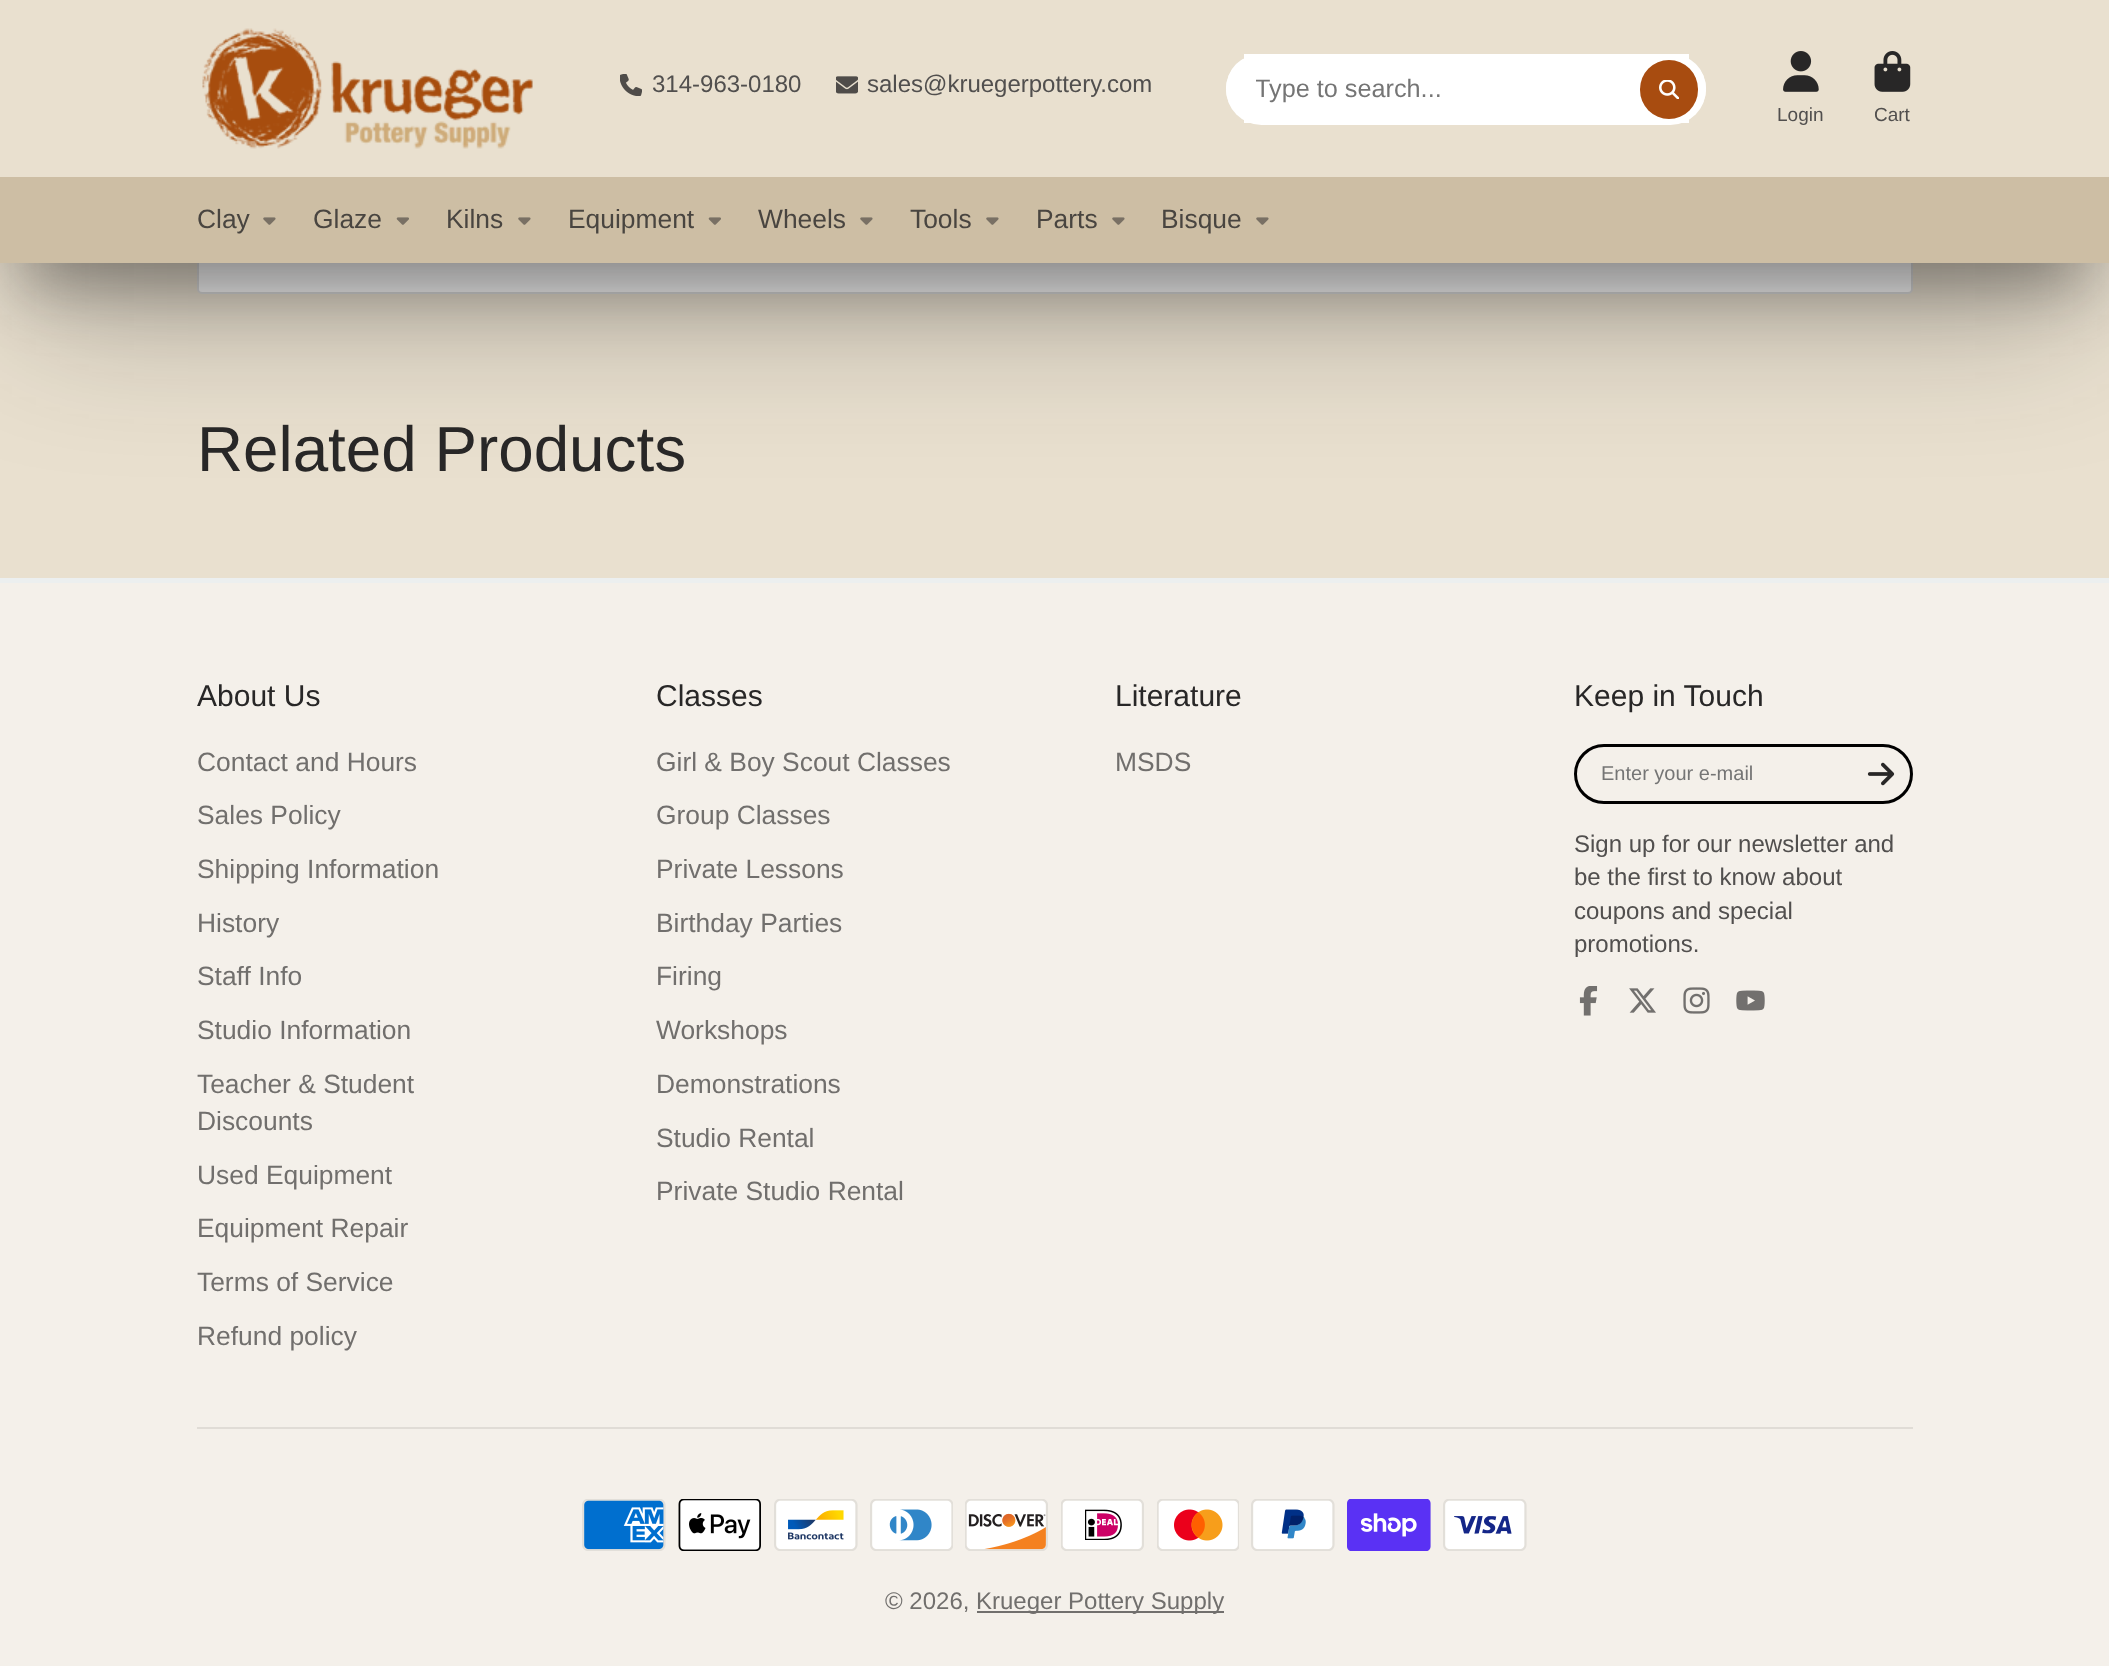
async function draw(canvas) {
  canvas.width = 2109
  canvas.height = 1666
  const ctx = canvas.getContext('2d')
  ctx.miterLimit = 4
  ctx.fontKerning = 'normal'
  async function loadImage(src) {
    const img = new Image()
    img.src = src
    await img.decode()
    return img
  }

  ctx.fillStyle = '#e9e0cf'
  ctx.fillRect(0, 0, 2109, 1666)
  ctx.fillStyle = '#fff'
  ctx.beginPath()
  ctx.roundRect(198, 70, 1714, 223, [0, 4, 4, 4])
  ctx.fill()
  ctx.strokeStyle = '#ddd'
  ctx.lineWidth = 2
  ctx.stroke()
  ctx.fillStyle = '#1b1a1a66'
  ctx.filter = 'blur(33px)'
  ctx.beginPath()
  ctx.rect(24, 69, 2061, 215)
  ctx.fill()
  ctx.filter = 'none'
  ctx.fillStyle = '#1b1a1a4d'
  ctx.filter = 'blur(75px)'
  ctx.beginPath()
  ctx.rect(24, 99, 2061, 215)
  ctx.fill()
  ctx.filter = 'none'
  ctx.fillStyle = '#e9e0cf'
  ctx.fillRect(0, 0, 2109, 177)
  ctx.drawImage(await loadImage('image0.png'), 202, 28, 331, 121)
  ctx.drawImage(await loadImage('image1.png'), 620, 74, 22, 22)
  ctx.font = '24px Liberation Sans'
  ctx.fillStyle = '#514f4e'
  ctx.fillText('314-963-0180', 652, 92)
  ctx.drawImage(await loadImage('image2.png'), 836, 76, 22, 18)
  ctx.fillText('sales@kruegerpottery.com', 867, 92)
  ctx.fillStyle = '#fff'
  ctx.beginPath()
  ctx.roundRect(1226, 54, 480, 69, 34.5)
  ctx.fill()
  ctx.fillRect(1244, 54, 445, 69)
  ctx.beginPath()
  ctx.roundRect(1226, 54, 480, 71, 35.5)
  ctx.fill()
  ctx.save()
  ctx.beginPath()
  ctx.rect(1256, 74, 420, 30)
  ctx.clip()
  ctx.font = '25.25px Liberation Sans'
  ctx.fillStyle = '#757575'
  ctx.fillText('Type to search...', 1255, 97)
  ctx.restore()
  ctx.fillStyle = '#a84c10'
  ctx.beginPath()
  ctx.roundRect(1640, 60, 58, 59, 29)
  ctx.fill()
  ctx.drawImage(await loadImage('image3.png'), 1659, 80, 20, 19)
  ctx.drawImage(await loadImage('image4.png'), 1783, 51, 36, 41)
  ctx.font = '19px Liberation Sans'
  ctx.fillStyle = '#514f4e'
  ctx.fillText('Login', 1777, 121)
  ctx.drawImage(await loadImage('image5.png'), 1874, 51, 37, 41)
  ctx.fillText('Cart', 1874, 121)
  ctx.fillStyle = '#cdbea4'
  ctx.fillRect(0, 177, 2109, 86)
  ctx.font = '26.4px Liberation Sans'
  ctx.fillStyle = '#494540'
  ctx.fillText('Clay', 197, 228)
  ctx.drawImage(await loadImage('image6.png'), 263, 217, 13, 8)
  ctx.fillText('Glaze', 313, 228)
  ctx.drawImage(await loadImage('image7.png'), 396, 217, 13, 8)
  ctx.fillText('Kilns', 446, 228)
  ctx.drawImage(await loadImage('image6.png'), 518, 217, 13, 8)
  ctx.fillText('Equipment', 568, 228)
  ctx.drawImage(await loadImage('image7.png'), 708, 217, 13, 8)
  ctx.fillText('Wheels', 758, 228)
  ctx.drawImage(await loadImage('image6.png'), 860, 217, 13, 8)
  ctx.fillText('Tools', 910, 228)
  ctx.drawImage(await loadImage('image6.png'), 986, 217, 13, 8)
  ctx.fillText('Parts', 1036, 228)
  ctx.drawImage(await loadImage('image6.png'), 1112, 217, 13, 8)
  ctx.fillText('Bisque', 1161, 228)
  ctx.drawImage(await loadImage('image6.png'), 1256, 217, 13, 8)
  ctx.font = '63.75px Liberation Sans'
  ctx.fillStyle = '#282727'
  ctx.fillText('Related Products', 197, 471)
  ctx.fillStyle = '#f4f0ea'
  ctx.fillRect(0, 583, 2109, 1083)
  ctx.fillStyle = '#ecefef'
  ctx.fillRect(0, 578, 2109, 5)
  ctx.font = '30px Liberation Sans'
  ctx.fillStyle = '#282727'
  ctx.fillText('About Us', 197, 706)
  ctx.font = '26.4px Liberation Sans'
  ctx.fillStyle = '#716f6d'
  ctx.fillText('Contact and Hours', 197, 771)
  ctx.fillText('Sales Policy', 197, 824)
  ctx.fillText('Shipping Information', 197, 878)
  ctx.fillText('History', 197, 932)
  ctx.fillText('Staff Info', 197, 985)
  ctx.fillText('Studio Information', 197, 1039)
  ctx.fillText('Teacher & Student', 197, 1093)
  ctx.fillText('Discounts', 197, 1130)
  ctx.fillText('Used Equipment', 197, 1184)
  ctx.fillText('Equipment Repair', 197, 1237)
  ctx.fillText('Terms of Service', 197, 1291)
  ctx.fillText('Refund policy', 197, 1345)
  ctx.font = '30px Liberation Sans'
  ctx.fillStyle = '#282727'
  ctx.fillText('Classes', 656, 706)
  ctx.font = '26.4px Liberation Sans'
  ctx.fillStyle = '#716f6d'
  ctx.fillText('Girl & Boy Scout Classes', 656, 771)
  ctx.fillText('Group Classes', 656, 824)
  ctx.fillText('Private Lessons', 656, 878)
  ctx.fillText('Birthday Parties', 656, 932)
  ctx.fillText('Firing', 656, 985)
  ctx.fillText('Workshops', 656, 1039)
  ctx.fillText('Demonstrations', 656, 1093)
  ctx.fillText('Studio Rental', 656, 1147)
  ctx.fillText('Private Studio Rental', 656, 1200)
  ctx.font = '30px Liberation Sans'
  ctx.fillStyle = '#282727'
  ctx.fillText('Literature', 1115, 706)
  ctx.font = '26.4px Liberation Sans'
  ctx.fillStyle = '#716f6d'
  ctx.fillText('MSDS', 1115, 771)
  ctx.font = '30px Liberation Sans'
  ctx.fillStyle = '#282727'
  ctx.fillText('Keep in Touch', 1574, 706)
  ctx.beginPath()
  ctx.roundRect(1575.5, 745.5, 336, 57, 28.5)
  ctx.strokeStyle = '#000'
  ctx.lineWidth = 3
  ctx.stroke()
  ctx.font = '20px Liberation Sans'
  ctx.fillStyle = '#757575'
  ctx.fillText('Enter your e-mail', 1601, 780)
  ctx.drawImage(await loadImage('image8.png'), 1867, 762, 28, 24)
  ctx.font = '24px Liberation Sans'
  ctx.fillStyle = '#514f4e'
  ctx.fillText('Sign up for our newsletter and', 1574, 852)
  ctx.fillText('be the first to know about', 1574, 885)
  ctx.fillText('coupons and special', 1574, 919)
  ctx.fillText('promotions.', 1574, 952)
  ctx.drawImage(await loadImage('image9.png'), 1579, 986, 19, 30)
  ctx.drawImage(await loadImage('image10.png'), 1629, 988, 27, 25)
  ctx.drawImage(await loadImage('image11.png'), 1683, 987, 27, 27)
  ctx.drawImage(await loadImage('image12.png'), 1736, 990, 29, 21)
  ctx.fillStyle = '#e0dcd6'
  ctx.fillRect(197, 1427, 1716, 2)
  ctx.drawImage(await loadImage('image13.png'), 582, 1499, 84, 52)
  ctx.drawImage(await loadImage('image14.png'), 678, 1499, 83, 52)
  ctx.drawImage(await loadImage('image15.png'), 774, 1499, 84, 52)
  ctx.drawImage(await loadImage('image16.png'), 870, 1499, 83, 52)
  ctx.drawImage(await loadImage('image17.png'), 965, 1499, 83, 52)
  ctx.drawImage(await loadImage('image18.png'), 1061, 1499, 83, 52)
  ctx.drawImage(await loadImage('image19.png'), 1157, 1499, 82, 52)
  ctx.drawImage(await loadImage('image20.png'), 1251, 1499, 84, 52)
  ctx.drawImage(await loadImage('image21.png'), 1347, 1499, 84, 52)
  ctx.drawImage(await loadImage('image22.png'), 1443, 1499, 84, 52)
  ctx.fillStyle = '#716f6d'
  ctx.fillText('© 2026,', 885, 1609)
  ctx.fillRect(977, 1611, 247, 2)
  ctx.fillText('Krueger Pottery Supply', 976, 1609)
}

draw(document.querySelector('canvas'))
